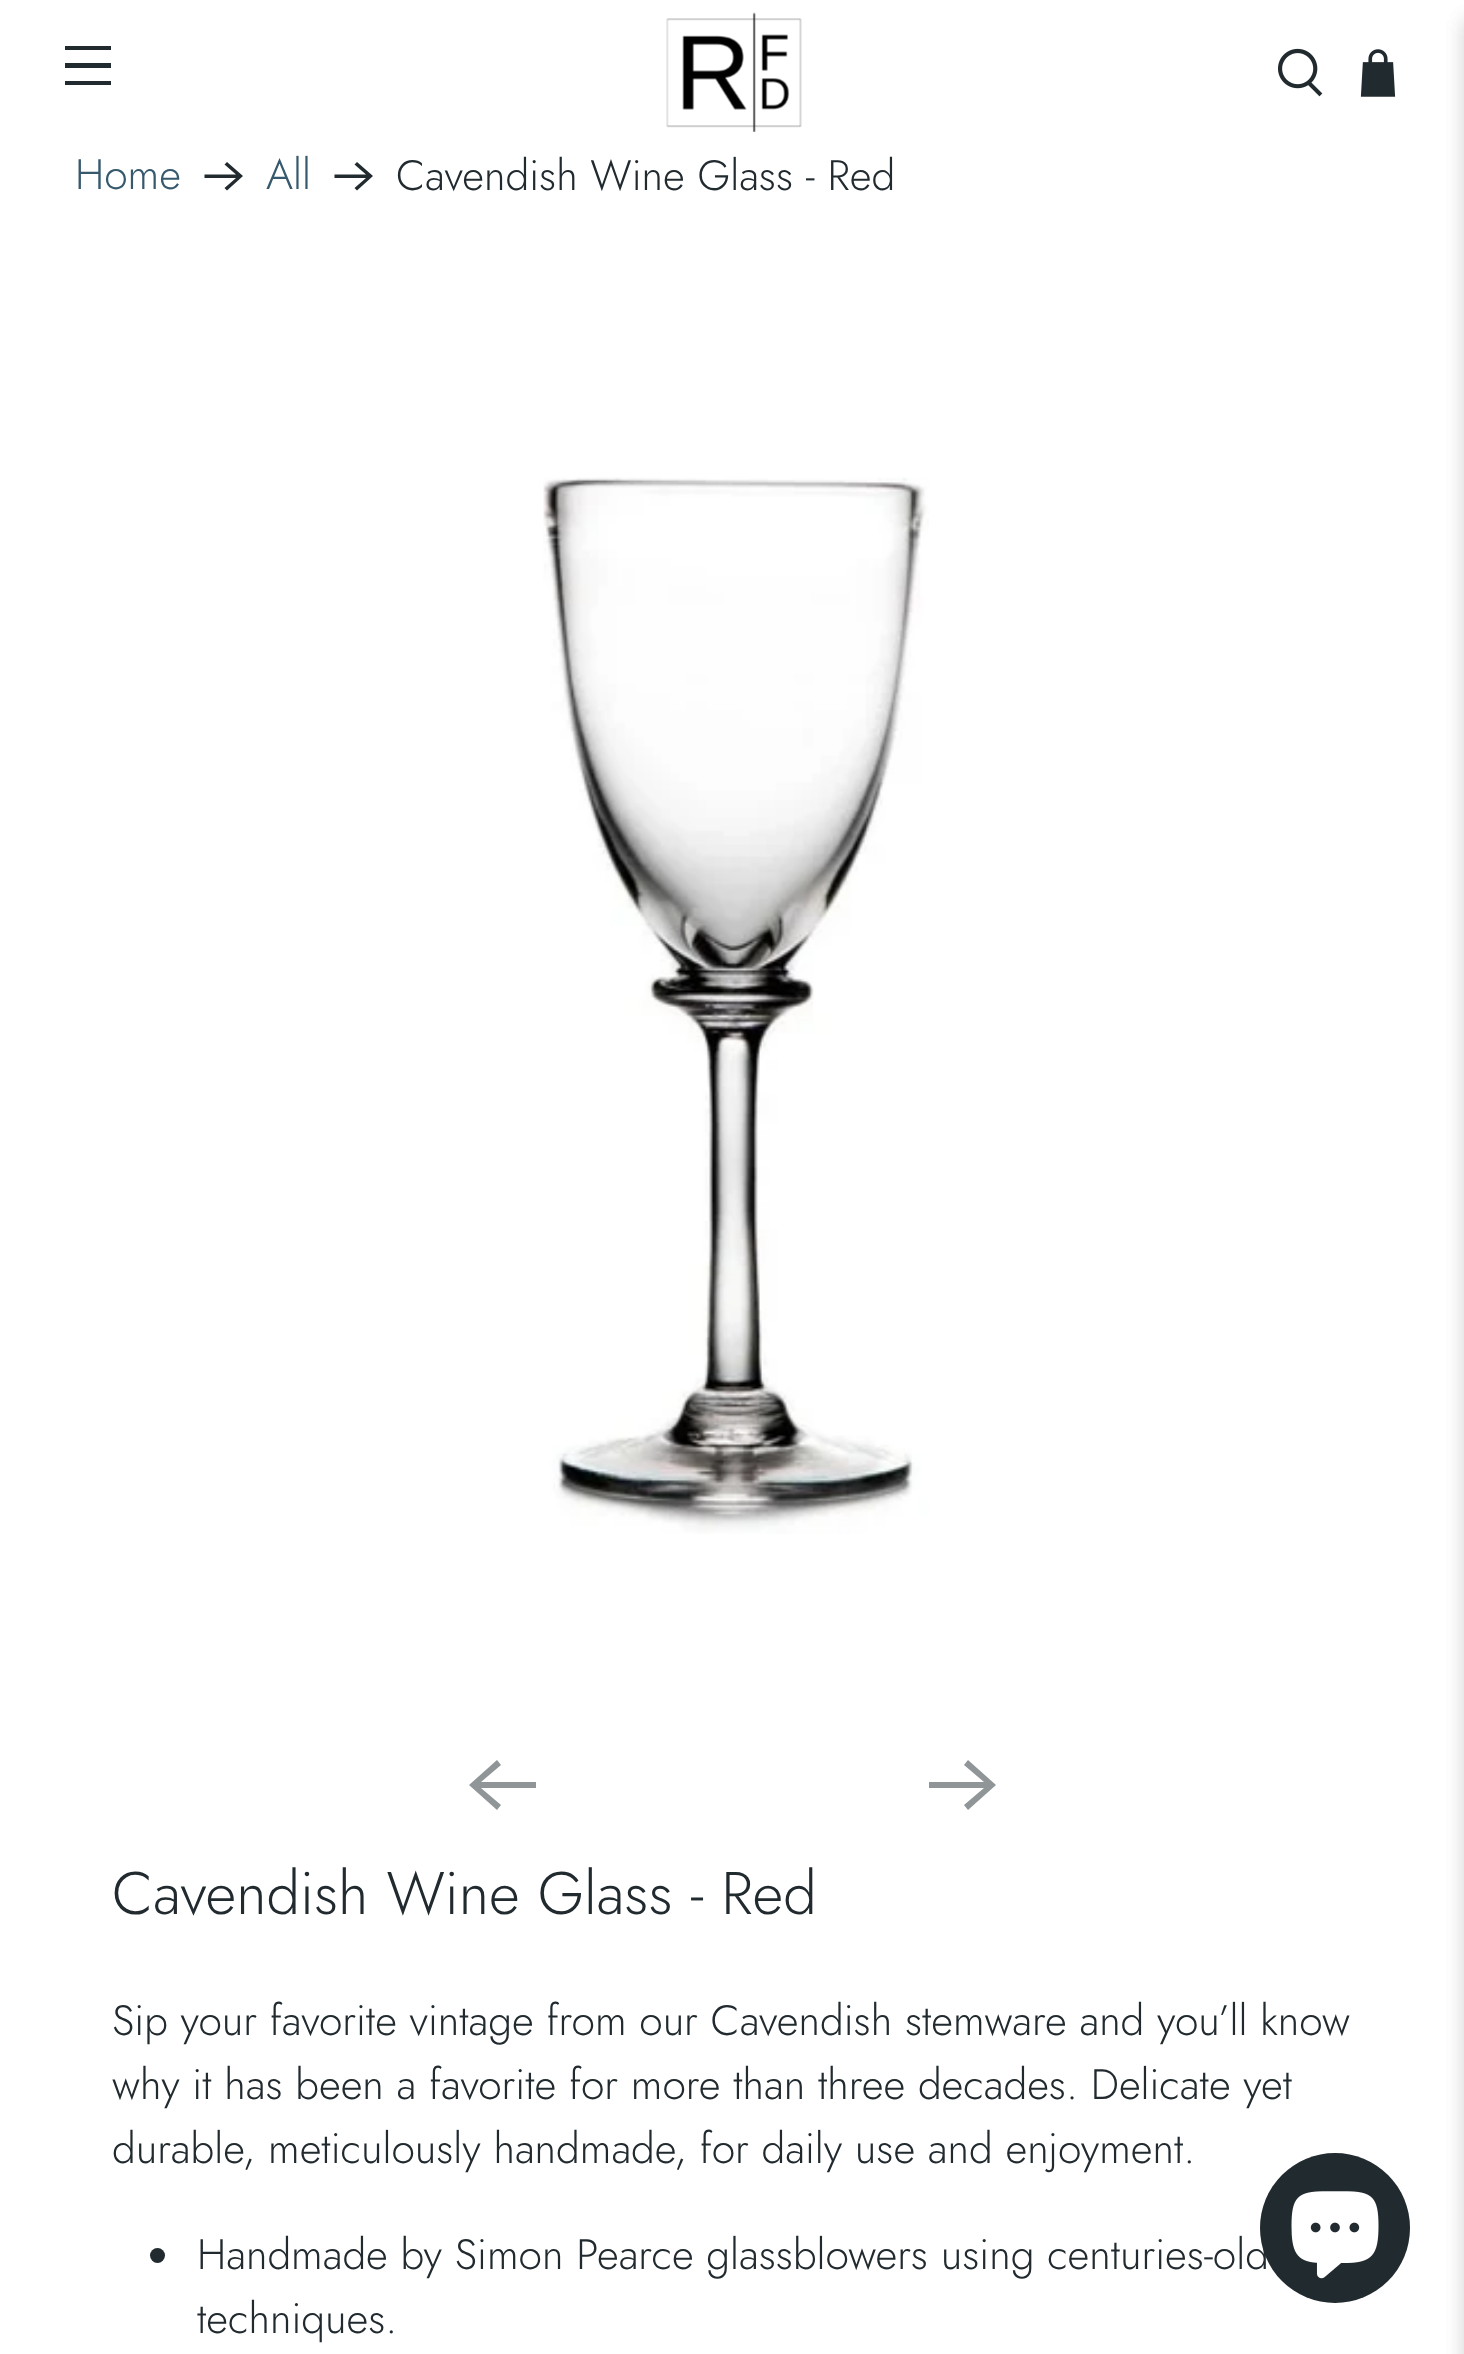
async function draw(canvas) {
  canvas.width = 1464
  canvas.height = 2354
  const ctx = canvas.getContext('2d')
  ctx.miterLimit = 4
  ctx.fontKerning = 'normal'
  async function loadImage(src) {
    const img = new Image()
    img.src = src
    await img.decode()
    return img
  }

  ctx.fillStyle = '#fff'
  ctx.fillRect(0, 0, 1464, 2354)
  ctx.fillStyle = '#212a2f'
  ctx.fillRect(65, 46, 46, 4)
  ctx.fillRect(65, 63, 46, 5)
  ctx.fillRect(65, 81, 46, 4)
  ctx.drawImage(await loadImage('image0.png'), 666, 12, 136, 120)
  ctx.drawImage(await loadImage('image1.png'), 1278, 48, 45, 49)
  ctx.drawImage(await loadImage('image2.png'), 1360, 49, 36, 48)
  ctx.fillStyle = '#0a0a0a1a'
  ctx.filter = 'blur(10px)'
  ctx.beginPath()
  ctx.rect(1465, 20, 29, 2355)
  ctx.fill()
  ctx.filter = 'none'
  ctx.font = '300 42.5px Jost'
  ctx.fillStyle = '#36596d'
  ctx.fillText('Home', 75, 189)
  ctx.fillStyle = '#212a2f'
  ctx.beginPath()
  ctx.moveTo(227, 162)
  ctx.lineTo(224.5, 164.5)
  ctx.lineTo(236, 174.5)
  ctx.lineTo(204.5, 174.5)
  ctx.lineTo(204.5, 178)
  ctx.lineTo(236, 178)
  ctx.lineTo(224.5, 188)
  ctx.lineTo(227, 190.5)
  ctx.lineTo(243, 176)
  ctx.closePath()
  ctx.fill()
  ctx.fillStyle = '#36596d'
  ctx.fillText('All', 266, 189)
  ctx.fillStyle = '#212a2f'
  ctx.beginPath()
  ctx.moveTo(357, 162)
  ctx.lineTo(354.5, 164.5)
  ctx.lineTo(366, 174.5)
  ctx.lineTo(334.5, 174.5)
  ctx.lineTo(334.5, 178)
  ctx.lineTo(366, 178)
  ctx.lineTo(354.5, 188)
  ctx.lineTo(357, 190.5)
  ctx.lineTo(373, 176)
  ctx.closePath()
  ctx.fill()
  ctx.fillText('Cavendish Wine Glass - Red', 396, 190)
  ctx.drawImage(await loadImage('image3.png'), 543, 477, 386, 1057)
  ctx.fillStyle = '#909597'
  ctx.beginPath()
  ctx.moveTo(536, 1782)
  ctx.lineTo(481, 1782)
  ctx.lineTo(501, 1765)
  ctx.lineTo(497, 1760)
  ctx.lineTo(469, 1785)
  ctx.lineTo(497, 1810)
  ctx.lineTo(501, 1805)
  ctx.lineTo(481, 1788)
  ctx.lineTo(536, 1788)
  ctx.closePath()
  ctx.fill()
  ctx.beginPath()
  ctx.moveTo(929, 1788)
  ctx.lineTo(984, 1788)
  ctx.lineTo(964, 1805)
  ctx.lineTo(968, 1810)
  ctx.lineTo(996, 1785)
  ctx.lineTo(968, 1760)
  ctx.lineTo(964, 1765)
  ctx.lineTo(984, 1782)
  ctx.lineTo(929, 1782)
  ctx.closePath()
  ctx.fill()
  ctx.font = '300 60px Jost'
  ctx.fillStyle = '#212a2f'
  ctx.fillText('Cavendish Wine Glass - Red', 112, 1914)
  ctx.font = '300 42.5px Jost'
  ctx.fillText('Sip your favorite vintage from our Cavendish stemware and you’ll know', 112, 2035)
  ctx.fillText('why it has been a favorite for more than three decades. Delicate yet', 112, 2099)
  ctx.fillText('durable, meticulously handmade, for daily use and enjoyment.', 112, 2163)
  ctx.beginPath()
  ctx.arc(157.5, 2255.5, 7.5, 0, 2 * Math.PI)
  ctx.fill()
  ctx.fillText('Handmade by Simon Pearce glassblowers using centuries-old', 197, 2269)
  ctx.fillText('techniques.', 197, 2333)
  ctx.fillStyle = '#0a0a0a1a'
  ctx.filter = 'blur(10px)'
  ctx.beginPath()
  ctx.rect(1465, 20, 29, 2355)
  ctx.fill()
  ctx.filter = 'none'
  ctx.fillStyle = '#212a2f'
  ctx.beginPath()
  ctx.arc(1335, 2228, 75, 0, 2 * Math.PI)
  ctx.fill()
  ctx.drawImage(await loadImage('image4.png'), 1291, 2191, 88, 88)
}

draw(document.querySelector('canvas'))
